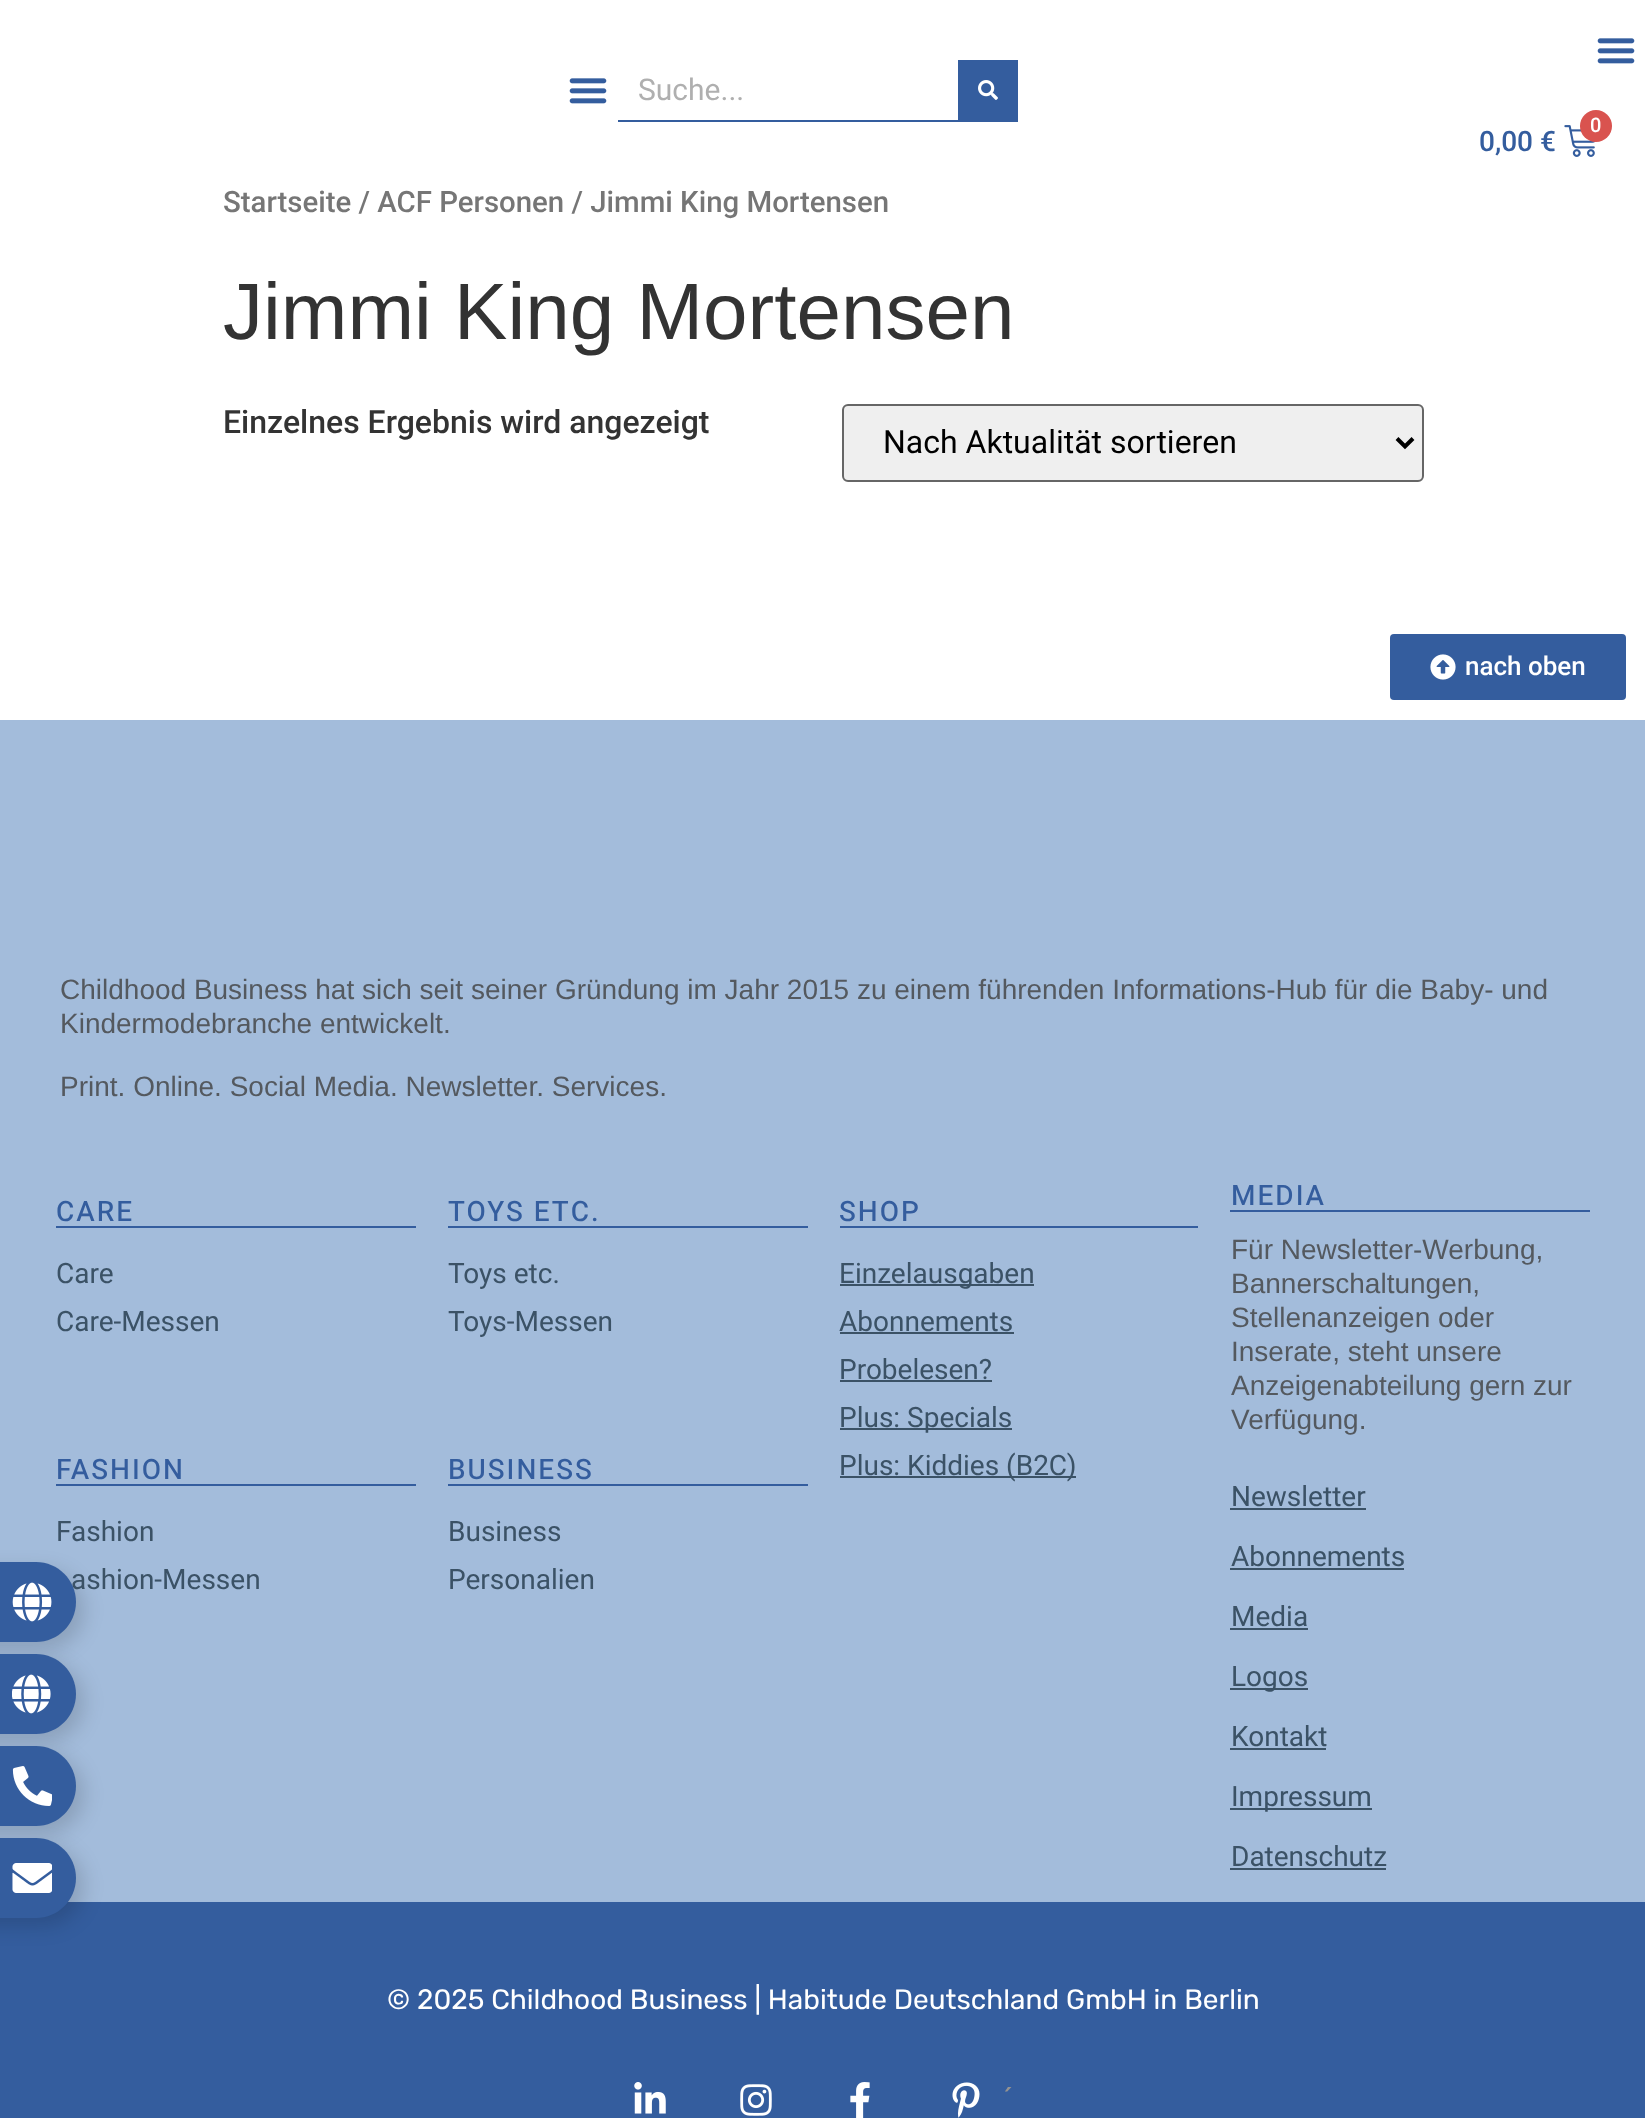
async function draw(canvas) {
  canvas.width = 1645
  canvas.height = 2118
  const ctx = canvas.getContext('2d')
  ctx.miterLimit = 4
  ctx.fontKerning = 'normal'
  async function loadImage(src) {
    const img = new Image()
    img.src = src
    await img.decode()
    return img
  }

  ctx.fillStyle = '#fff'
  ctx.fillRect(0, 0, 1645, 2118)
  ctx.drawImage(await loadImage('image0.png'), 569, 78, 38, 26)
  ctx.fillStyle = '#345d9e'
  ctx.fillRect(618, 120, 400, 2)
  ctx.font = '30px Roboto'
  ctx.fillStyle = '#afafaf'
  ctx.fillText('Suche...', 638, 100)
  ctx.fillStyle = '#345d9e'
  ctx.fillRect(958, 60, 60, 60)
  ctx.drawImage(await loadImage('image1.png'), 978, 80, 20, 20)
  ctx.drawImage(await loadImage('image0.png'), 1597, 38, 38, 26)
  ctx.drawImage(await loadImage('image2.png'), 1564, 125, 32, 32)
  ctx.fillStyle = '#d9534f'
  ctx.beginPath()
  ctx.arc(1596, 126, 16, 0, 2 * Math.PI)
  ctx.fill()
  ctx.font = '500 20px Roboto'
  ctx.fillStyle = '#fff'
  ctx.fillText('0', 1590, 132)
  ctx.font = '500 28px Roboto'
  ctx.fillStyle = '#345d9e'
  ctx.fillText('0,00 €', 1479, 151)
  ctx.font = '500 29.4px Roboto'
  ctx.fillStyle = '#767676'
  ctx.fillText('Startseite / ACF Personen / Jimmi King Mortensen', 223, 212)
  ctx.font = '80px Liberation Sans'
  ctx.fillStyle = '#333'
  ctx.fillText('Jimmi King Mortensen', 223, 339)
  ctx.font = '500 32px Roboto'
  ctx.fillText('Einzelnes Ergebnis wird angezeigt', 223, 433)
  ctx.fillStyle = '#efefef'
  ctx.beginPath()
  ctx.roundRect(843, 405, 580, 76, 5)
  ctx.fill()
  ctx.strokeStyle = '#666'
  ctx.lineWidth = 2
  ctx.stroke()
  ctx.beginPath()
  ctx.moveTo(1397, 438.5)
  ctx.lineTo(1405, 446.5)
  ctx.lineTo(1413, 438.5)
  ctx.strokeStyle = '#000'
  ctx.lineWidth = 4
  ctx.stroke()
  ctx.font = '32px Roboto'
  ctx.fillStyle = '#000'
  ctx.fillText('Nach Aktualität sortieren', 883, 453)
  ctx.fillStyle = '#a3bcdb'
  ctx.fillRect(0, 720, 1645, 1182)
  ctx.fillStyle = '#00000026'
  ctx.filter = 'blur(10px)'
  ctx.beginPath()
  ctx.roundRect(-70, 1570, 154, 80, 40)
  ctx.fill()
  ctx.filter = 'none'
  ctx.font = '28px Roboto'
  ctx.fillStyle = '#3b5266'
  ctx.fillText('ashion-Messen', 71, 1589)
  ctx.fillStyle = '#345d9e'
  ctx.beginPath()
  ctx.moveTo(-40, 1562)
  ctx.lineTo(36, 1562)
  ctx.bezierCurveTo(58, 1562, 76, 1580, 76, 1602)
  ctx.bezierCurveTo(76, 1624, 58, 1642, 36, 1642)
  ctx.lineTo(-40, 1642)
  ctx.closePath()
  ctx.fill()
  ctx.drawImage(await loadImage('image3.png'), 12, 1582, 40, 40)
  ctx.fillStyle = '#00000026'
  ctx.filter = 'blur(10px)'
  ctx.beginPath()
  ctx.roundRect(-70, 1662, 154, 80, 40)
  ctx.fill()
  ctx.filter = 'none'
  ctx.fillStyle = '#345d9e'
  ctx.beginPath()
  ctx.moveTo(-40, 1654)
  ctx.lineTo(36, 1654)
  ctx.bezierCurveTo(58, 1654, 76, 1672, 76, 1694)
  ctx.bezierCurveTo(76, 1716, 58, 1734, 36, 1734)
  ctx.lineTo(-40, 1734)
  ctx.closePath()
  ctx.fill()
  ctx.drawImage(await loadImage('image4.png'), 12, 1674, 39, 40)
  ctx.fillStyle = '#00000026'
  ctx.filter = 'blur(10px)'
  ctx.beginPath()
  ctx.roundRect(-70, 1754, 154, 80, 40)
  ctx.fill()
  ctx.filter = 'none'
  ctx.fillStyle = '#345d9e'
  ctx.beginPath()
  ctx.moveTo(-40, 1746)
  ctx.lineTo(36, 1746)
  ctx.bezierCurveTo(58, 1746, 76, 1764, 76, 1786)
  ctx.bezierCurveTo(76, 1808, 58, 1826, 36, 1826)
  ctx.lineTo(-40, 1826)
  ctx.closePath()
  ctx.fill()
  ctx.drawImage(await loadImage('image5.png'), 12, 1766, 40, 40)
  ctx.fillRect(0, 1902, 1645, 216)
  ctx.fillStyle = '#00000026'
  ctx.filter = 'blur(10px)'
  ctx.beginPath()
  ctx.roundRect(-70, 1846, 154, 80, 40)
  ctx.fill()
  ctx.filter = 'none'
  ctx.fillStyle = '#345d9e'
  ctx.beginPath()
  ctx.moveTo(-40, 1838)
  ctx.lineTo(36, 1838)
  ctx.bezierCurveTo(58, 1838, 76, 1856, 76, 1878)
  ctx.bezierCurveTo(76, 1900, 58, 1918, 36, 1918)
  ctx.lineTo(-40, 1918)
  ctx.closePath()
  ctx.fill()
  ctx.drawImage(await loadImage('image6.png'), 12, 1863, 40, 30)
  ctx.beginPath()
  ctx.roundRect(1390, 634, 236, 66, 4)
  ctx.fill()
  ctx.drawImage(await loadImage('image7.png'), 1430, 654, 26, 26)
  ctx.font = '500 26px Roboto'
  ctx.fillStyle = '#fff'
  ctx.fillText('nach oben', 1465, 675)
  ctx.font = '28px Liberation Sans'
  ctx.fillStyle = '#54595f'
  ctx.fillText('Childhood Business hat sich seit seiner Gründung im Jahr 2015 zu einem führenden Informations-Hub für die Baby- und', 60, 999)
  ctx.fillText('Kindermodebranche entwickelt.', 60, 1033)
  ctx.fillText('Print. Online. Social Media. Newsletter. Services.', 60, 1096)
  ctx.fillStyle = '#345d9e'
  ctx.fillRect(56, 1226, 360, 2)
  ctx.letterSpacing = '2px'
  ctx.font = '500 28px Heebo'
  ctx.fillText('CARE', 56, 1221)
  ctx.letterSpacing = '0px'
  ctx.font = '28px Roboto'
  ctx.fillStyle = '#3b5266'
  ctx.fillText('Care', 56, 1283)
  ctx.fillText('Care-Messen', 56, 1331)
  ctx.fillStyle = '#345d9e'
  ctx.fillRect(56, 1484, 360, 2)
  ctx.letterSpacing = '2px'
  ctx.font = '500 28px Heebo'
  ctx.fillText('FASHION', 56, 1479)
  ctx.letterSpacing = '0px'
  ctx.font = '28px Roboto'
  ctx.fillStyle = '#3b5266'
  ctx.fillText('Fashion', 56, 1541)
  ctx.fillStyle = '#345d9e'
  ctx.fillRect(448, 1226, 360, 2)
  ctx.letterSpacing = '2px'
  ctx.font = '500 28px Heebo'
  ctx.fillText('TOYS ETC.', 448, 1221)
  ctx.letterSpacing = '0px'
  ctx.font = '28px Roboto'
  ctx.fillStyle = '#3b5266'
  ctx.fillText('Toys etc.', 448, 1283)
  ctx.fillText('Toys-Messen', 448, 1331)
  ctx.fillStyle = '#345d9e'
  ctx.fillRect(448, 1484, 360, 2)
  ctx.letterSpacing = '2px'
  ctx.font = '500 28px Heebo'
  ctx.fillText('BUSINESS', 448, 1479)
  ctx.letterSpacing = '0px'
  ctx.font = '28px Roboto'
  ctx.fillStyle = '#3b5266'
  ctx.fillText('Business', 448, 1541)
  ctx.fillText('Personalien', 448, 1589)
  ctx.fillStyle = '#345d9e'
  ctx.fillRect(840, 1226, 358, 2)
  ctx.letterSpacing = '2px'
  ctx.font = '500 28px Heebo'
  ctx.fillText('SHOP', 839, 1221)
  ctx.fillStyle = '#3b5266'
  ctx.fillRect(840, 1284, 194, 2)
  ctx.letterSpacing = '0px'
  ctx.font = '28px Roboto'
  ctx.fillText('Einzelausgaben', 839, 1283)
  ctx.fillText('Abonnements', 839, 1331)
  ctx.fillRect(840, 1332, 174, 2)
  ctx.fillText('Probelesen?', 839, 1379)
  ctx.fillRect(840, 1380, 152, 2)
  ctx.fillRect(840, 1428, 172, 2)
  ctx.fillText('Plus: Specials', 839, 1427)
  ctx.fillRect(840, 1476, 236, 2)
  ctx.fillText('Plus: Kiddies (B2C)', 839, 1475)
  ctx.fillStyle = '#345d9e'
  ctx.fillRect(1230, 1210, 360, 2)
  ctx.letterSpacing = '2px'
  ctx.font = '500 28px Heebo'
  ctx.fillText('MEDIA', 1231, 1205)
  ctx.letterSpacing = '0px'
  ctx.font = '28px Liberation Sans'
  ctx.fillStyle = '#54595f'
  ctx.fillText('Für Newsletter-Werbung,', 1231, 1259)
  ctx.fillText('Bannerschaltungen,', 1231, 1293)
  ctx.fillText('Stellenanzeigen oder', 1231, 1327)
  ctx.fillText('Inserate, steht unsere', 1231, 1361)
  ctx.fillText('Anzeigenabteilung gern zur', 1231, 1395)
  ctx.fillText('Verfügung.', 1231, 1429)
  ctx.font = '28px Roboto'
  ctx.fillStyle = '#3b5266'
  ctx.fillText('Newsletter', 1231, 1506)
  ctx.fillRect(1230, 1508, 136, 2)
  ctx.fillText('Abonnements', 1231, 1566)
  ctx.fillRect(1230, 1568, 174, 2)
  ctx.fillText('Media', 1231, 1626)
  ctx.fillRect(1230, 1628, 78, 2)
  ctx.fillRect(1230, 1688, 78, 2)
  ctx.fillText('Logos', 1231, 1686)
  ctx.fillText('Kontakt', 1231, 1746)
  ctx.fillRect(1230, 1748, 96, 2)
  ctx.fillRect(1230, 1808, 142, 2)
  ctx.fillText('Impressum', 1231, 1806)
  ctx.fillText('Datenschutz', 1231, 1866)
  ctx.fillRect(1230, 1868, 156, 2)
  ctx.font = '28px Rubik'
  ctx.fillStyle = '#fff'
  ctx.fillText('© 2025 Childhood Business | Habitude Deutschland GmbH in Berlin', 387, 2009)
  ctx.drawImage(await loadImage('image8.png'), 634, 2082, 32, 32)
  ctx.drawImage(await loadImage('image9.png'), 740, 2084, 32, 32)
  ctx.drawImage(await loadImage('image10.png'), 850, 2082, 20, 36)
  ctx.drawImage(await loadImage('image11.png'), 952, 2082, 28, 36)
  ctx.font = '32px Roboto'
  ctx.fillStyle = '#959391'
  ctx.fillText('´', 1003, 2111)
}

draw(document.querySelector('canvas'))
